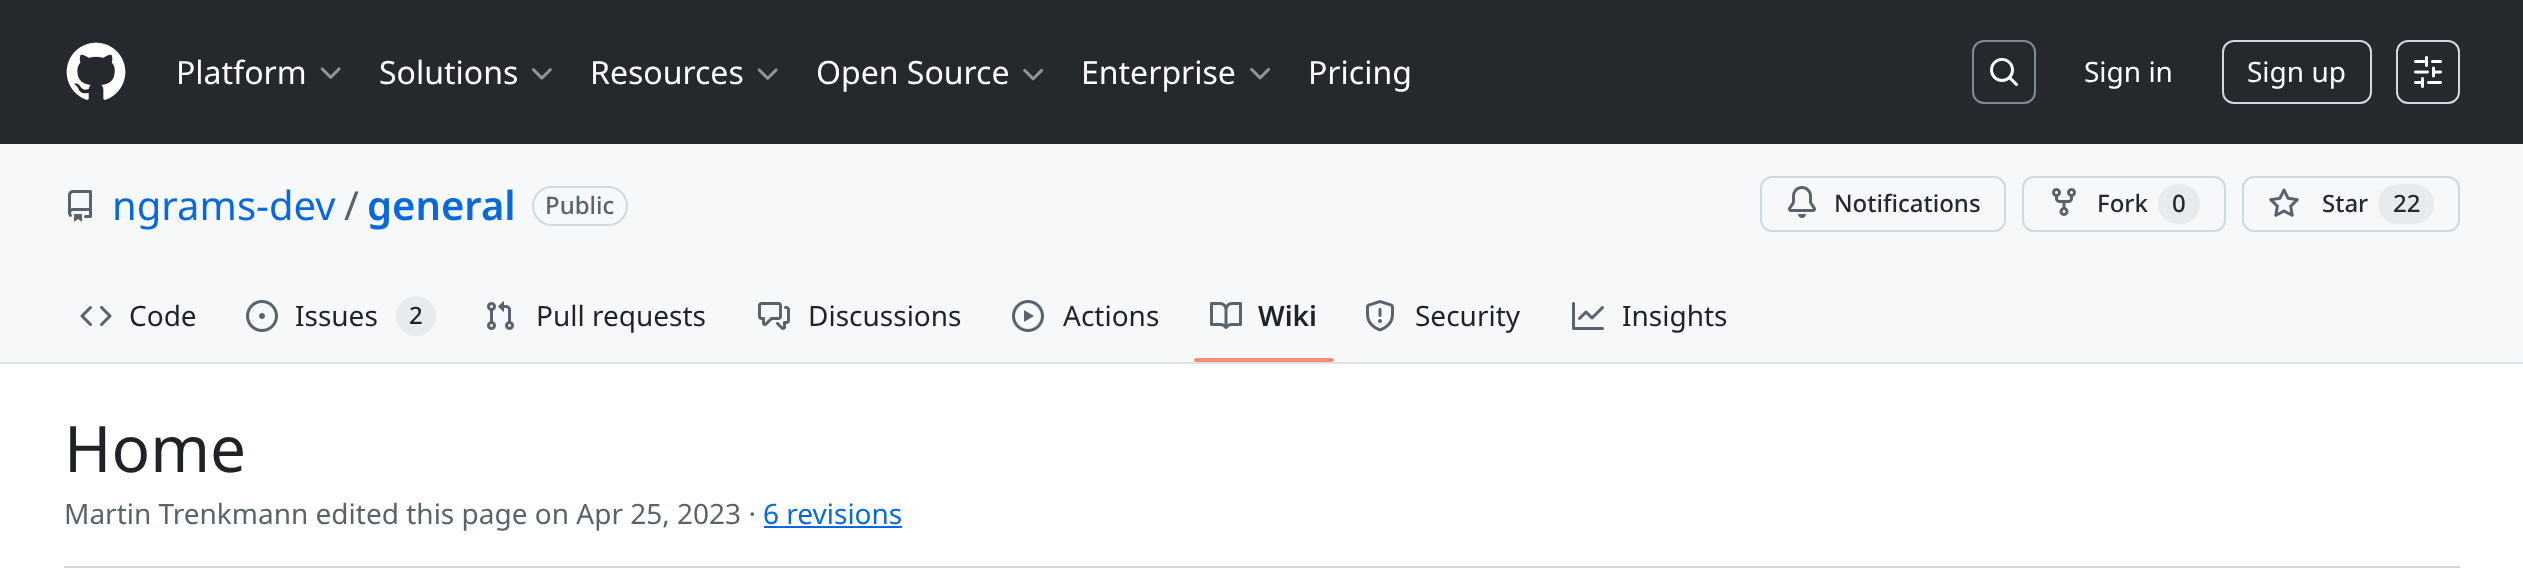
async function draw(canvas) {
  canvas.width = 2523
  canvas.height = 582
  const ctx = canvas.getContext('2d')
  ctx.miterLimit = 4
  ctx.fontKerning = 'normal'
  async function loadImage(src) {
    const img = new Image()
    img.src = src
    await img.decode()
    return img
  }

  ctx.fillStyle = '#fff'
  ctx.fillRect(0, 0, 2523, 582)
  ctx.fillStyle = '#25292e'
  ctx.fillRect(0, 0, 2523, 144)
  ctx.drawImage(await loadImage('image0.png'), 66, 42, 60, 58)
  ctx.font = '32px Noto Sans'
  ctx.fillStyle = '#fff'
  ctx.fillText('Platform', 176, 84)
  ctx.drawImage(await loadImage('image1.png'), 320, 67, 21, 12)
  ctx.fillText('Solutions', 379, 84)
  ctx.drawImage(await loadImage('image2.png'), 532, 68, 20, 12)
  ctx.fillText('Resources', 590, 84)
  ctx.drawImage(await loadImage('image1.png'), 757, 68, 21, 12)
  ctx.fillText('Open Source', 816, 84)
  ctx.drawImage(await loadImage('image3.png'), 1023, 68, 21, 13)
  ctx.fillText('Enterprise', 1081, 84)
  ctx.drawImage(await loadImage('image4.png'), 1250, 67, 20, 13)
  ctx.fillText('Pricing', 1308, 84)
  ctx.beginPath()
  ctx.roundRect(1973, 41, 62, 62, 11)
  ctx.strokeStyle = '#818b98'
  ctx.lineWidth = 2
  ctx.stroke()
  ctx.drawImage(await loadImage('image5.png'), 1990, 58, 28, 28)
  ctx.font = '28px Noto Sans'
  ctx.fillText('Sign in', 2084, 82)
  ctx.beginPath()
  ctx.roundRect(2223, 41, 148, 62, 11)
  ctx.strokeStyle = '#d1d9e0'
  ctx.stroke()
  ctx.fillText('Sign up', 2247, 82)
  ctx.beginPath()
  ctx.roundRect(2397, 41, 62, 62, 11)
  ctx.stroke()
  ctx.drawImage(await loadImage('image6.png'), 2414, 56, 28, 32)
  ctx.fillStyle = '#f6f8fa'
  ctx.fillRect(0, 144, 2523, 218)
  ctx.drawImage(await loadImage('image7.png'), 68, 190, 24, 32)
  ctx.font = '40px Noto Sans'
  ctx.fillStyle = '#0969da'
  ctx.fillText('ngrams-dev', 112, 220)
  ctx.fillStyle = '#59636e'
  ctx.fillText('/', 344, 220)
  ctx.font = '600 40px Noto Sans'
  ctx.fillStyle = '#0969da'
  ctx.fillText('general', 367, 220)
  ctx.beginPath()
  ctx.roundRect(533, 187, 94, 38, 19)
  ctx.stroke()
  ctx.font = '500 24px Noto Sans'
  ctx.fillStyle = '#59636e'
  ctx.fillText('Public', 545, 214)
  ctx.beginPath()
  ctx.roundRect(1761, 177, 244, 54, 11)
  ctx.stroke()
  ctx.drawImage(await loadImage('image8.png'), 1788, 186, 28, 32)
  ctx.fillStyle = '#25292e'
  ctx.fillText('Notifications', 1834, 212)
  ctx.beginPath()
  ctx.roundRect(2023, 177, 202, 54, 11)
  ctx.stroke()
  ctx.drawImage(await loadImage('image9.png'), 2052, 188, 24, 28)
  ctx.fillText('Fork', 2097, 212)
  ctx.fillStyle = '#e8ebee'
  ctx.beginPath()
  ctx.roundRect(2158, 184, 42, 40, 20)
  ctx.fill()
  ctx.fillStyle = '#25292e'
  ctx.fillText('0', 2172, 212)
  ctx.beginPath()
  ctx.roundRect(2243, 177, 216, 54, 11)
  ctx.stroke()
  ctx.drawImage(await loadImage('image10.png'), 2269, 188, 30, 29)
  ctx.fillText('Star', 2322, 212)
  ctx.fillStyle = '#e8ebee'
  ctx.beginPath()
  ctx.roundRect(2378, 184, 56, 40, 20)
  ctx.fill()
  ctx.fillStyle = '#25292e'
  ctx.fillText('22', 2393, 212)
  ctx.fillStyle = '#dce2e8'
  ctx.fillRect(0, 362, 2523, 2)
  ctx.drawImage(await loadImage('image11.png'), 80, 306, 32, 20)
  ctx.font = '28px Noto Sans'
  ctx.fillStyle = '#1f2328'
  ctx.fillText('Code', 129, 326)
  ctx.drawImage(await loadImage('image12.png'), 246, 300, 32, 32)
  ctx.fillText('Issues', 295, 326)
  ctx.fillStyle = '#e8ebee'
  ctx.beginPath()
  ctx.arc(416, 316, 20, 0, 2 * Math.PI)
  ctx.fill()
  ctx.font = '500 24px Noto Sans'
  ctx.fillStyle = '#1f2328'
  ctx.fillText('2', 409, 324)
  ctx.drawImage(await loadImage('image13.png'), 487, 301, 27, 29)
  ctx.font = '28px Noto Sans'
  ctx.fillText('Pull requests', 536, 326)
  ctx.drawImage(await loadImage('image14.png'), 758, 302, 32, 28)
  ctx.fillText('Discussions', 808, 326)
  ctx.drawImage(await loadImage('image15.png'), 1012, 300, 32, 32)
  ctx.fillText('Actions', 1063, 326)
  ctx.drawImage(await loadImage('image16.png'), 1210, 302, 32, 27)
  ctx.font = '600 28px Noto Sans'
  ctx.fillText('Wiki', 1258, 326)
  ctx.fillStyle = '#fd8c73'
  ctx.beginPath()
  ctx.roundRect(1194, 358, 140, 4, 2)
  ctx.fill()
  ctx.drawImage(await loadImage('image17.png'), 1366, 300, 28, 32)
  ctx.font = '28px Noto Sans'
  ctx.fillStyle = '#1f2328'
  ctx.fillText('Security', 1415, 326)
  ctx.drawImage(await loadImage('image18.png'), 1572, 302, 32, 28)
  ctx.fillText('Insights', 1622, 326)
  ctx.font = '64px Noto Sans'
  ctx.fillText('Home', 64, 472)
  ctx.fillStyle = '#d1d9e0'
  ctx.fillRect(64, 566, 2396, 2)
  ctx.font = '28px Noto Sans'
  ctx.fillStyle = '#59636e'
  ctx.fillText('Martin Trenkmann edited this page on Apr 25, 2023 ·', 64, 524)
  ctx.fillStyle = '#0969da'
  ctx.fillText('6 revisions', 763, 524)
  ctx.fillRect(764, 526, 138, 2)
}

draw(document.querySelector('canvas'))
